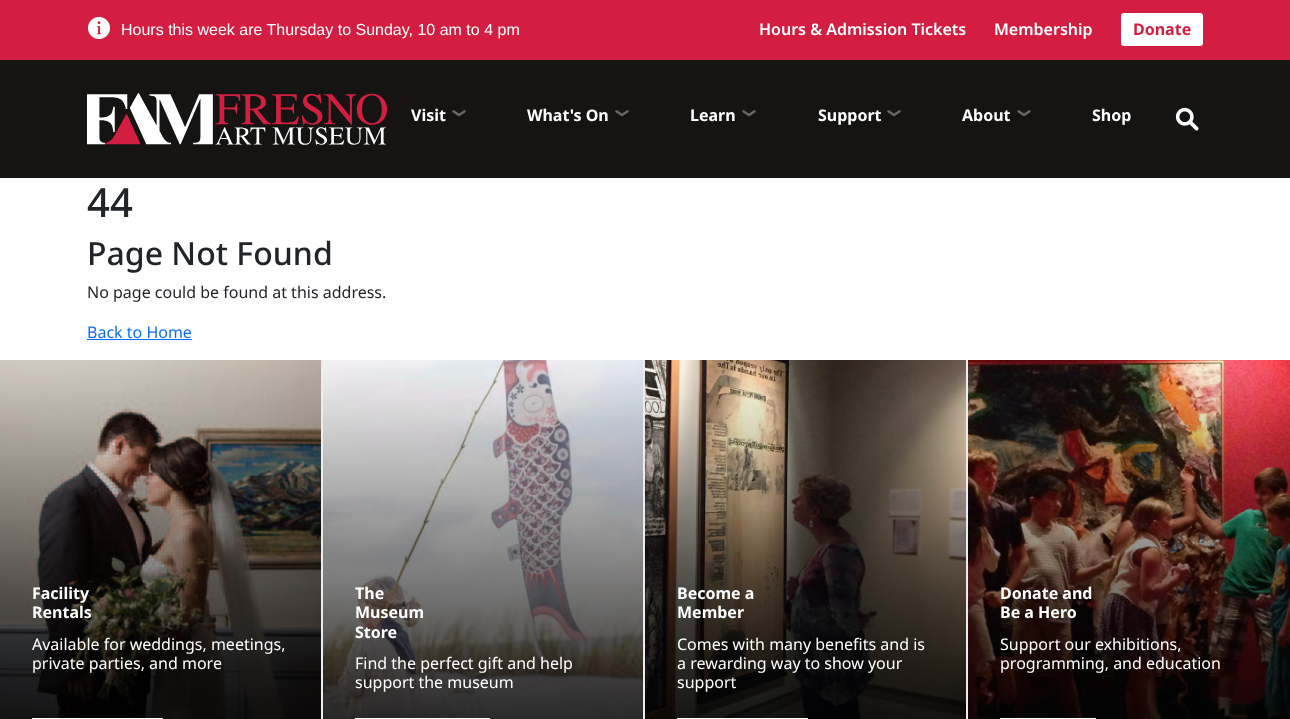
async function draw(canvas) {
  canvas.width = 1290
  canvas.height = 719
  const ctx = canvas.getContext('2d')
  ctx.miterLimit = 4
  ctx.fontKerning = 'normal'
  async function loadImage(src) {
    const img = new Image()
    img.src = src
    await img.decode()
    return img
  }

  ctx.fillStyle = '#fff'
  ctx.fillRect(0, 0, 1290, 719)
  ctx.fillStyle = '#d41e41'
  ctx.fillRect(0, 0, 1290, 60)
  ctx.drawImage(await loadImage('image0.png'), 88, 17, 22, 22)
  ctx.font = '16px Liberation Sans'
  ctx.fillStyle = '#fff'
  ctx.fillText('Hours this week are Thursday to Sunday, 10 am to 4 pm', 121, 35)
  ctx.font = '600 16px Noto Sans'
  ctx.fillText('Hours & Admission Tickets', 759, 35)
  ctx.fillText('Membership', 994, 35)
  ctx.beginPath()
  ctx.roundRect(1121, 13, 82, 33, 3)
  ctx.fill()
  ctx.font = 'bold 16px Noto Sans'
  ctx.fillStyle = '#d41e41'
  ctx.fillText('Donate', 1133, 35)
  ctx.fillStyle = '#151412'
  ctx.fillRect(0, 60, 1290, 118)
  ctx.drawImage(await loadImage('image1.png'), 87, 93, 300, 52)
  ctx.fillStyle = '#fff'
  ctx.fillText('Visit', 411, 121)
  ctx.drawImage(await loadImage('image2.png'), 452, 110, 14, 7)
  ctx.fillText('What\'s On', 527, 121)
  ctx.drawImage(await loadImage('image2.png'), 615, 110, 14, 7)
  ctx.fillText('Learn', 690, 121)
  ctx.drawImage(await loadImage('image2.png'), 742, 110, 14, 7)
  ctx.fillText('Support', 818, 121)
  ctx.drawImage(await loadImage('image2.png'), 887, 110, 14, 7)
  ctx.fillText('About', 962, 121)
  ctx.drawImage(await loadImage('image2.png'), 1017, 110, 14, 7)
  ctx.fillText('Shop', 1092, 121)
  ctx.drawImage(await loadImage('image3.png'), 1175, 107, 24, 24)
  ctx.font = '500 40px Noto Sans'
  ctx.fillStyle = '#212529'
  ctx.fillText('44', 87, 217)
  ctx.font = '500 32px Noto Sans'
  ctx.fillText('Page Not Found', 87, 265)
  ctx.font = '16px Noto Sans'
  ctx.fillText('No page could be found at this address.', 87, 298)
  ctx.fillStyle = '#0d6efd'
  ctx.fillText('Back to Home', 87, 338)
  ctx.fillRect(87, 339, 105, 1)
  ctx.drawImage(await loadImage('image4.png'), 0, 360, 321, 359)
  ctx.fillStyle = '#ebecf0'
  ctx.fillRect(321, 360, 2, 359)
  ctx.font = 'bold 16px Noto Sans'
  ctx.fillStyle = '#fff'
  ctx.fillText('Facility', 32, 599)
  ctx.fillText('Rentals', 32, 618)
  ctx.font = '16px Noto Sans'
  ctx.fillText('Available for weddings, meetings,', 32, 650)
  ctx.fillText('private parties, and more', 32, 669)
  ctx.strokeStyle = '#fff'
  ctx.lineWidth = 2
  ctx.strokeRect(33, 719, 129, 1)
  ctx.drawImage(await loadImage('image5.png'), 323, 360, 320, 359)
  ctx.fillStyle = '#ebecf0'
  ctx.fillRect(643, 360, 2, 359)
  ctx.font = 'bold 16px Noto Sans'
  ctx.fillStyle = '#fff'
  ctx.fillText('The', 355, 599)
  ctx.fillText('Museum', 355, 618)
  ctx.fillText('Store', 355, 638)
  ctx.font = '16px Noto Sans'
  ctx.fillText('Find the perfect gift and help', 355, 669)
  ctx.fillText('support the museum', 355, 688)
  ctx.strokeRect(356, 719, 133, 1)
  ctx.drawImage(await loadImage('image6.png'), 645, 360, 321, 359)
  ctx.fillStyle = '#ebecf0'
  ctx.fillRect(966, 360, 2, 359)
  ctx.font = 'bold 16px Noto Sans'
  ctx.fillStyle = '#fff'
  ctx.fillText('Become a', 677, 599)
  ctx.fillText('Member', 677, 618)
  ctx.font = '16px Noto Sans'
  ctx.fillText('Comes with many benefits and is', 677, 650)
  ctx.fillText('a rewarding way to show your', 677, 669)
  ctx.fillText('support', 677, 688)
  ctx.strokeRect(678, 719, 129, 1)
  ctx.drawImage(await loadImage('image7.png'), 968, 360, 322, 359)
  ctx.font = 'bold 16px Noto Sans'
  ctx.fillText('Donate and', 1000, 599)
  ctx.fillText('Be a Hero', 1000, 618)
  ctx.font = '16px Noto Sans'
  ctx.fillText('Support our exhibitions,', 1000, 650)
  ctx.fillText('programming, and education', 1000, 669)
  ctx.strokeRect(1001, 719, 94, 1)
}

draw(document.querySelector('canvas'))
